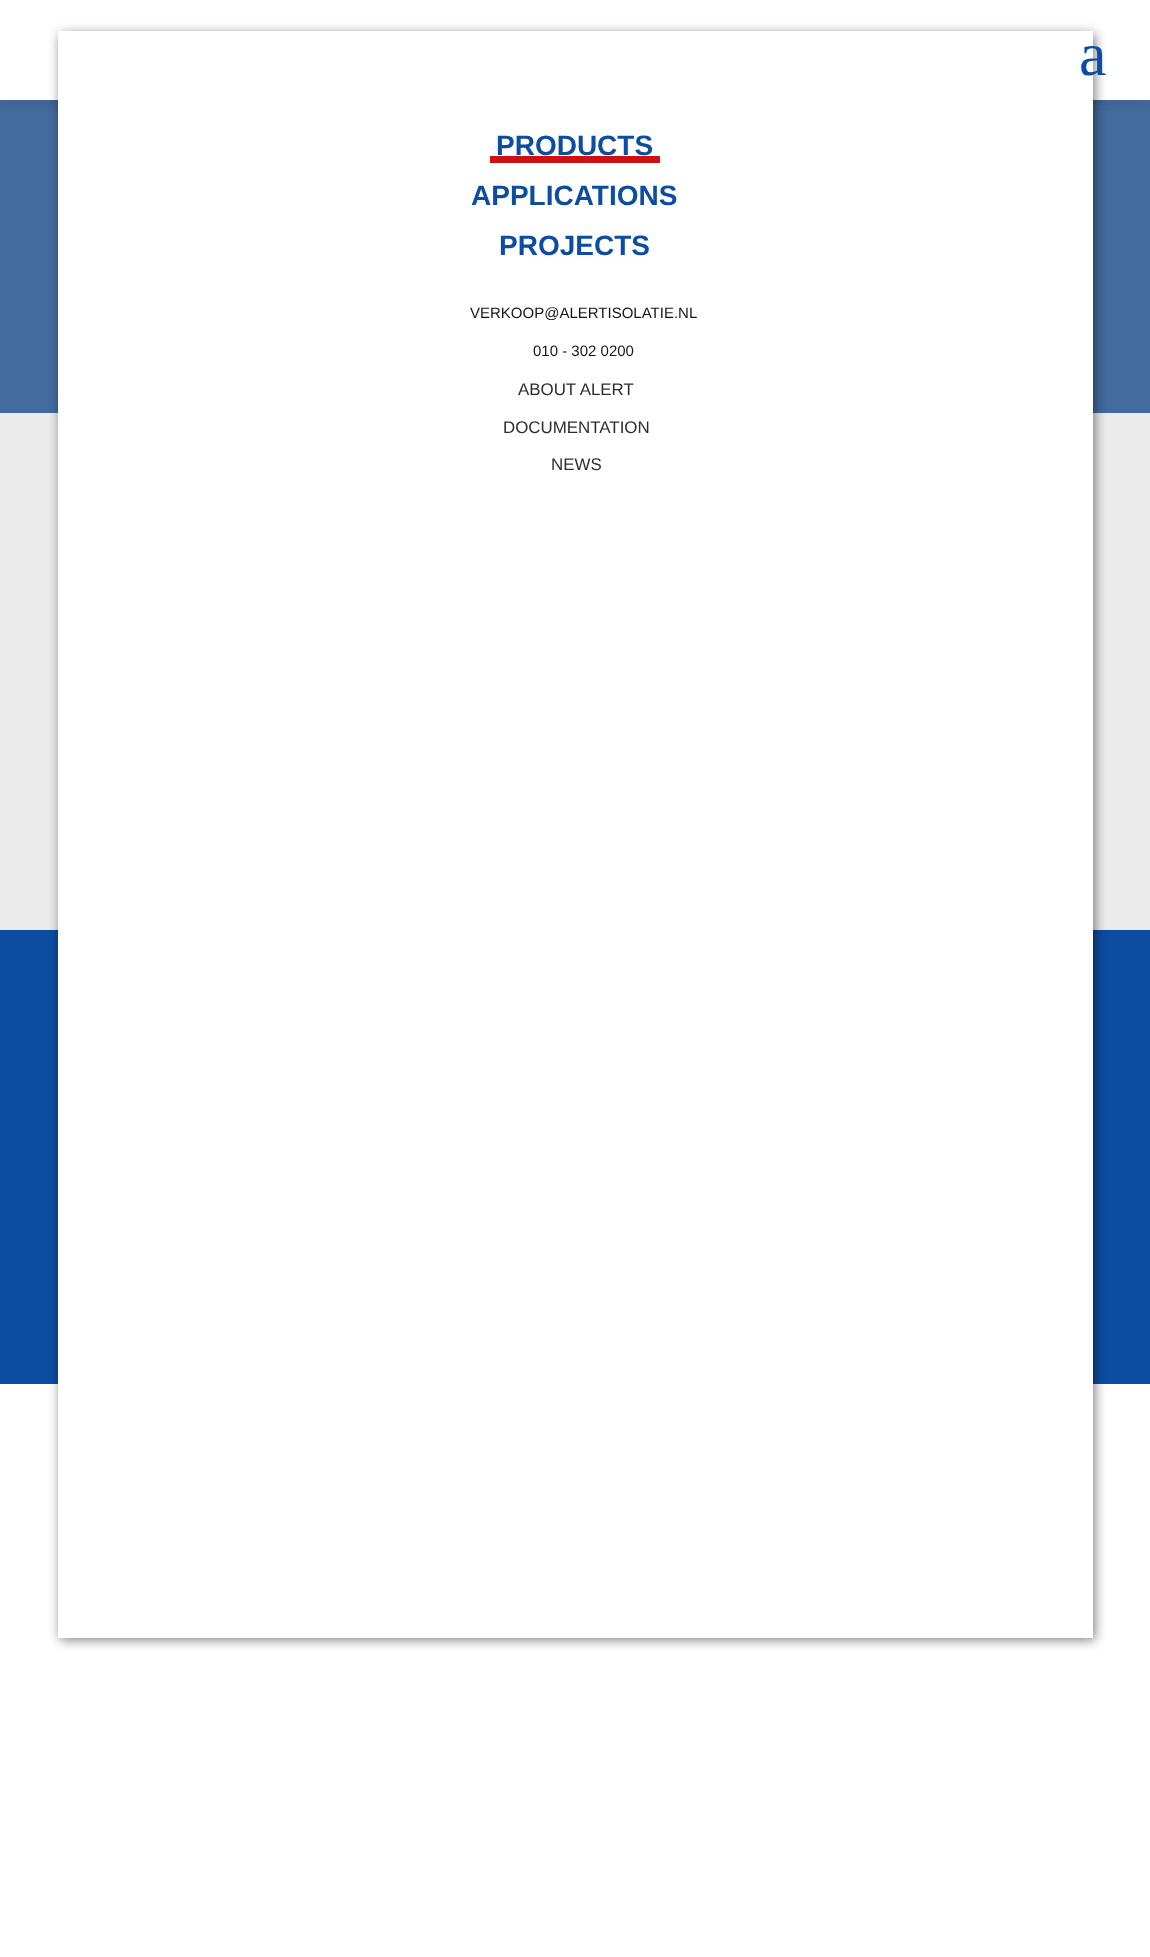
async function draw(canvas) {
  canvas.width = 1150
  canvas.height = 1957
  const ctx = canvas.getContext('2d')
  ctx.miterLimit = 4
  ctx.fontKerning = 'normal'

  ctx.fillStyle = '#fff'
  ctx.fillRect(0, 0, 1150, 1957)
  ctx.fillStyle = '#446b9e'
  ctx.fillRect(0, 100, 1150, 313)
  ctx.save()
  ctx.beginPath()
  ctx.rect(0, 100, 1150, 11)
  ctx.clip()
  ctx.fillStyle = '#00000026'
  ctx.filter = 'blur(9.5px)'
  ctx.beginPath()
  ctx.rect(0, 0, 1150, 100)
  ctx.fill()
  ctx.filter = 'none'
  ctx.restore()
  ctx.fillStyle = '#ebebec'
  ctx.fillRect(0, 413, 1150, 517)
  ctx.fillStyle = '#0c4da2'
  ctx.fillRect(0, 930, 1150, 454)
  ctx.fillStyle = '#00000080'
  ctx.filter = 'blur(6px)'
  ctx.beginPath()
  ctx.rect(60, 34, 1035, 1606)
  ctx.fill()
  ctx.filter = 'none'
  ctx.fillStyle = '#fff'
  ctx.fillRect(58, 31, 1035, 1607)
  ctx.font = '62px Liberation Serif'
  ctx.fillStyle = '#0c4da2'
  ctx.fillText('a', 1079, 75)
  ctx.font = 'bold 28px Liberation Sans'
  ctx.fillText('PRODUCTS', 496, 155)
  ctx.fillStyle = '#cf0f14'
  ctx.fillRect(490, 156, 170, 7)
  ctx.fillStyle = '#0c4da2'
  ctx.fillText('APPLICATIONS', 471, 205)
  ctx.fillText('PROJECTS', 499, 255)
  ctx.font = '15px Liberation Sans'
  ctx.fillStyle = '#151515'
  ctx.fillText('VERKOOP@ALERTISOLATIE.NL', 470, 318)
  ctx.fillText('010 - 302 0200', 533, 356)
  ctx.font = '16.9px Liberation Sans'
  ctx.fillStyle = '#2c2c2c'
  ctx.fillText('ABOUT ALERT', 518, 395)
  ctx.fillText('DOCUMENTATION', 503, 433)
  ctx.fillText('NEWS', 551, 470)
}

draw(document.querySelector('canvas'))
